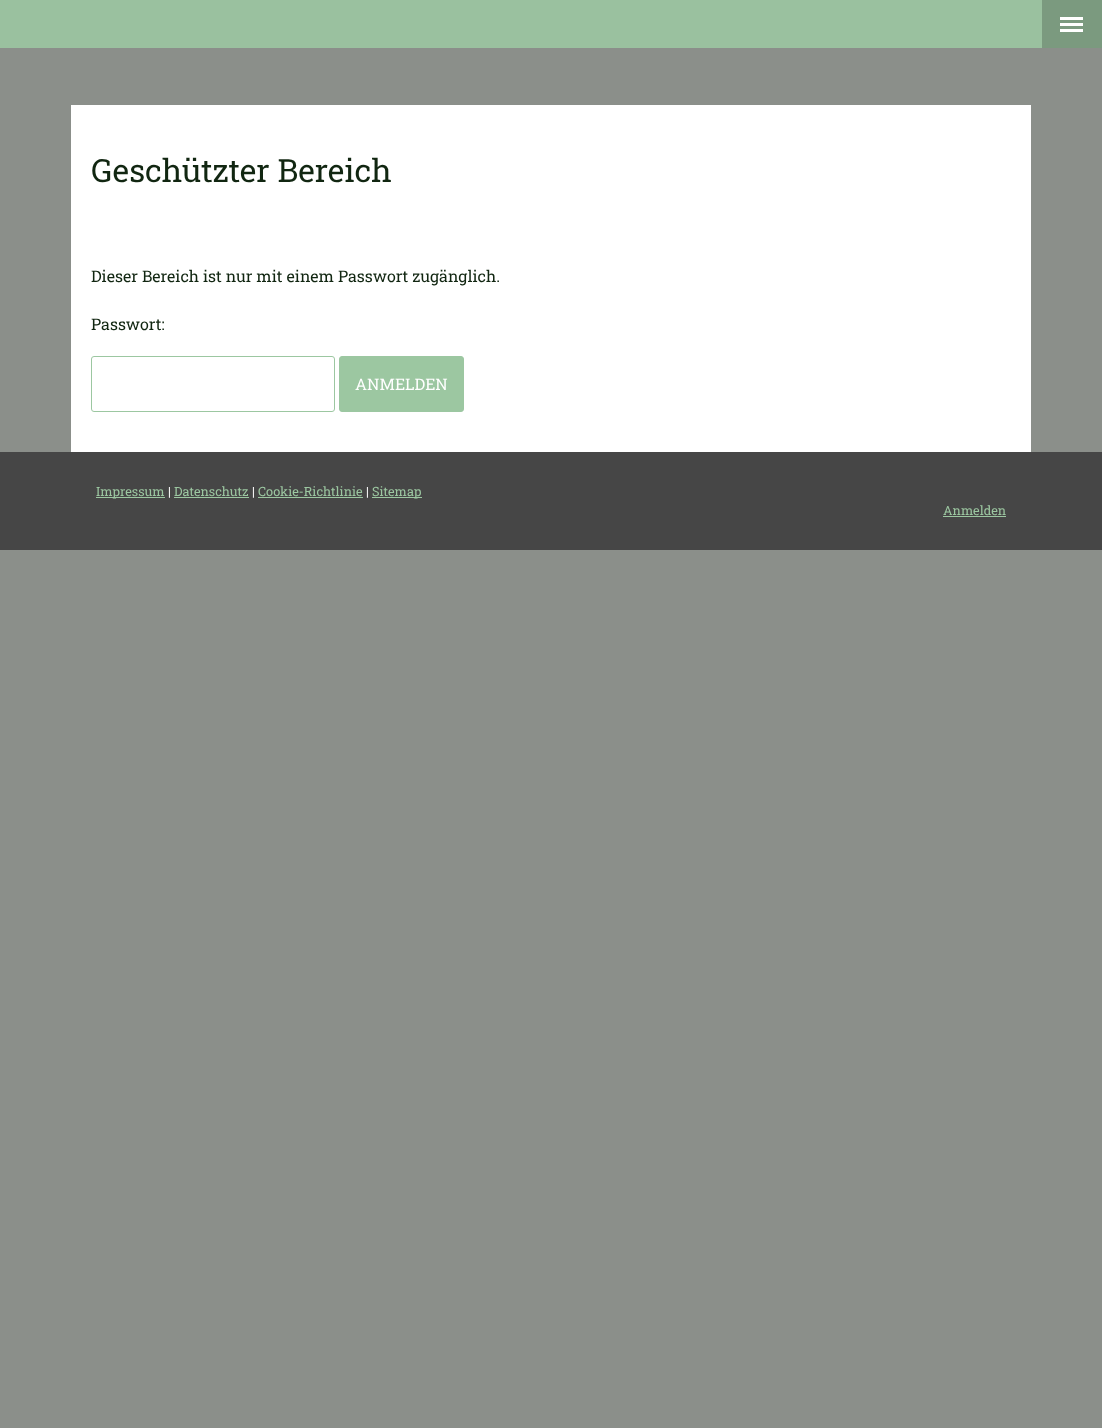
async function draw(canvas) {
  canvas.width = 1102
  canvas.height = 1428
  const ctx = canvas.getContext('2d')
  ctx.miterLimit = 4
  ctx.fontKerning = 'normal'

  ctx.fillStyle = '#8b8f8a'
  ctx.fillRect(0, 0, 1102, 1428)
  ctx.fillStyle = '#9ac19f'
  ctx.fillRect(0, 0, 1042, 48)
  ctx.fillStyle = '#7b9a7f'
  ctx.fillRect(1042, 0, 60, 48)
  ctx.fillStyle = '#fff'
  ctx.fillRect(1060, 23, 23, 3)
  ctx.fillRect(1060, 17, 23, 3)
  ctx.fillRect(1060, 29, 23, 3)
  ctx.fillRect(71, 105, 960, 347)
  ctx.font = '32px Roboto Slab'
  ctx.fillStyle = '#112611'
  ctx.fillText('Geschützter Bereich', 91, 182)
  ctx.font = '16px Roboto Slab'
  ctx.fillText('Dieser Bereich ist nur mit einem Passwort zugänglich.', 91, 282)
  ctx.fillText('Passwort:', 91, 330)
  ctx.beginPath()
  ctx.roundRect(91.5, 356.5, 243, 55, 2.5)
  ctx.strokeStyle = '#9cc7a1'
  ctx.stroke()
  ctx.fillStyle = '#9cc7a1'
  ctx.beginPath()
  ctx.roundRect(339.5, 356.5, 124, 55, 2.5)
  ctx.fill()
  ctx.stroke()
  ctx.fillStyle = '#fff'
  ctx.fillText('ANMELDEN', 355, 390)
  ctx.fillStyle = '#464646'
  ctx.fillRect(0, 452, 1102, 98)
  ctx.fillStyle = '#9cc7a1'
  ctx.fillRect(96, 497, 69, 1)
  ctx.font = '12.75px Roboto Slab'
  ctx.fillText('Impressum', 96, 496)
  ctx.fillStyle = '#fff'
  ctx.fillText('|', 168, 496)
  ctx.fillStyle = '#9cc7a1'
  ctx.fillText('Datenschutz', 174, 496)
  ctx.fillRect(174, 497, 75, 1)
  ctx.fillStyle = '#fff'
  ctx.fillText('|', 252, 496)
  ctx.fillStyle = '#9cc7a1'
  ctx.fillText('Cookie-Richtlinie', 258, 496)
  ctx.fillRect(258, 497, 105, 1)
  ctx.fillStyle = '#fff'
  ctx.fillText('|', 366, 496)
  ctx.fillStyle = '#9cc7a1'
  ctx.fillRect(372, 497, 50, 1)
  ctx.fillText('Sitemap', 372, 496)
  ctx.fillText('Anmelden', 943, 515)
  ctx.fillRect(943, 516, 63, 1)
}

draw(document.querySelector('canvas'))
